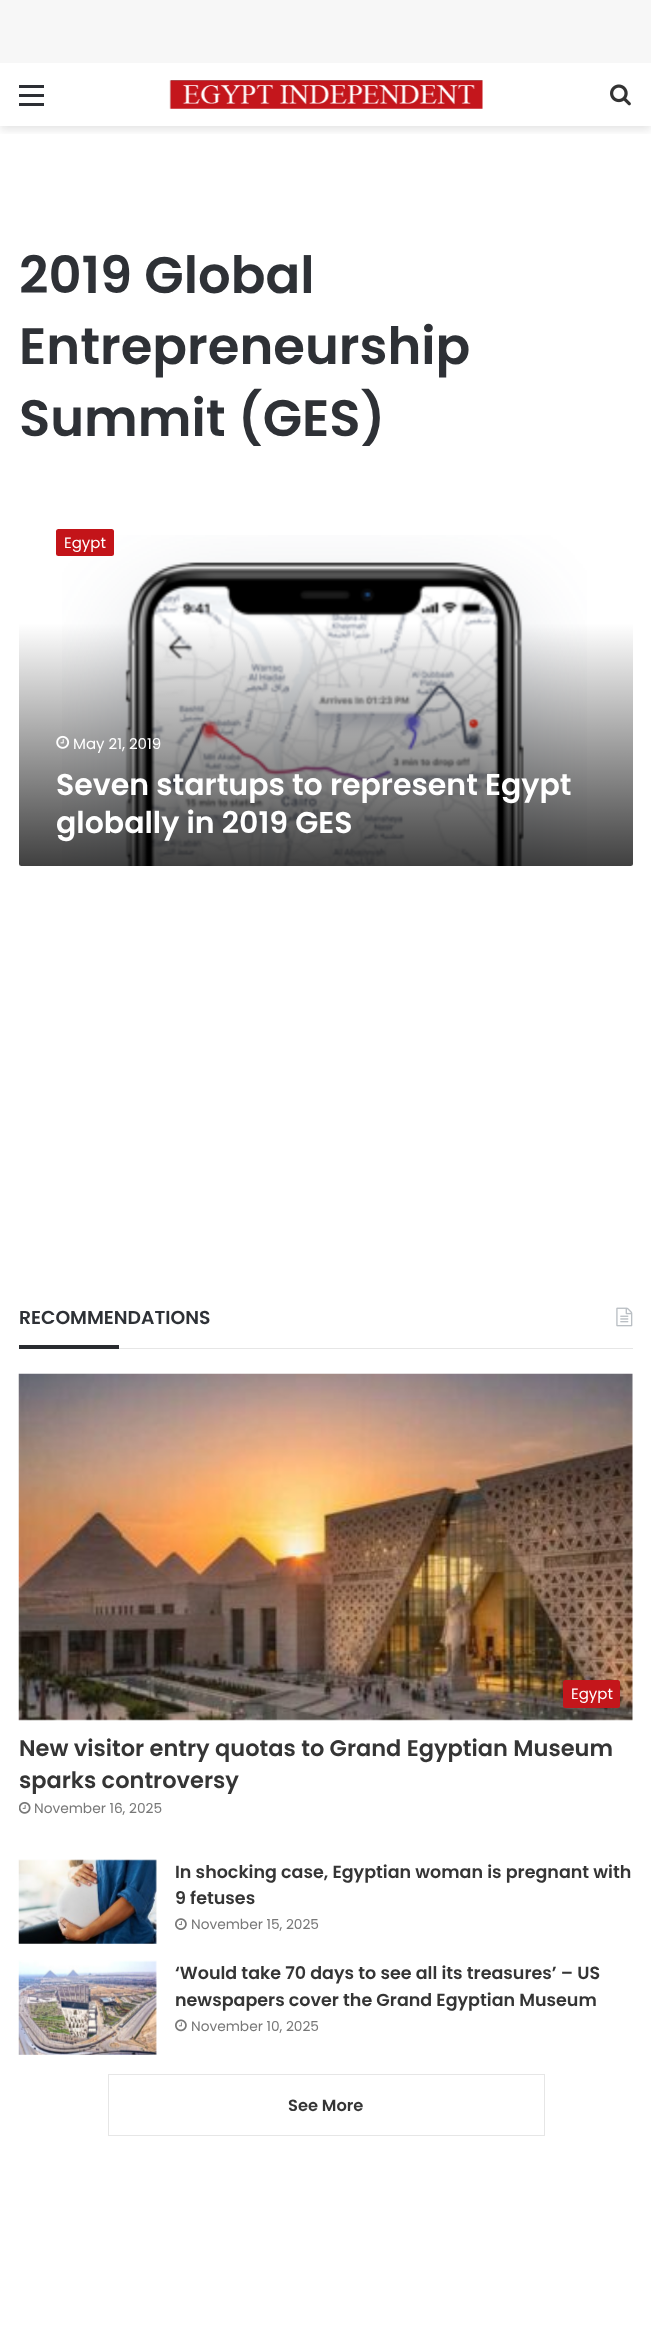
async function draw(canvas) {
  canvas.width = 651
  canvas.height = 2352
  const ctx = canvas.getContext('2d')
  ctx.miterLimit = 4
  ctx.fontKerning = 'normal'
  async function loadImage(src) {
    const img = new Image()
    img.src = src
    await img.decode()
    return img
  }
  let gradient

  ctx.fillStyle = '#f7f7f7'
  ctx.fillRect(0, 0, 651, 2352)
  ctx.fillStyle = '#fff'
  ctx.fillRect(0, 63, 651, 2289)
  ctx.save()
  ctx.beginPath()
  ctx.rect(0, 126, 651, 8)
  ctx.clip()
  ctx.fillStyle = '#0000001a'
  ctx.filter = 'blur(4.5px)'
  ctx.beginPath()
  ctx.rect(0, 66, 651, 64)
  ctx.fill()
  ctx.filter = 'none'
  ctx.restore()
  ctx.fillStyle = '#2c2f34'
  ctx.fillRect(19, 94, 25, 3)
  ctx.fillRect(19, 85, 25, 3)
  ctx.fillRect(19, 103, 25, 3)
  ctx.drawImage(await loadImage('image0.png'), 169, 80, 314, 29)
  ctx.drawImage(await loadImage('image1.png'), 610, 84, 21, 22)
  ctx.font = '600 51.25px Poppins'
  ctx.fillStyle = '#2e3136'
  ctx.fillText('2019 Global', 19, 293)
  ctx.fillText('Entrepreneurship', 19, 364)
  ctx.fillText('Summit (GES)', 19, 436)
  ctx.drawImage(await loadImage('image2.png'), 62, 535, 525, 331)
  ctx.fillStyle = '#c31419'
  ctx.beginPath()
  ctx.roundRect(56, 529, 58, 27, 2.5)
  ctx.fill()
  ctx.font = '15px Poppins'
  ctx.fillStyle = '#fff'
  ctx.fillText('Egypt', 64, 548)
  gradient = ctx.createLinearGradient(326, 623, 326, 866)
  gradient.addColorStop(0, '#00000000')
  gradient.addColorStop(1, '#000000bf')
  ctx.fillStyle = gradient
  ctx.beginPath()
  ctx.roundRect(19, 623, 614, 243, [0, 0, 2.5, 2.5])
  ctx.fill()
  ctx.drawImage(await loadImage('image3.png'), 56, 735, 14, 14)
  ctx.fillStyle = '#fff'
  ctx.fillText('May 21, 2019', 73, 749)
  ctx.font = '600 30px Poppins'
  ctx.fillText('Seven startups to represent Egypt', 56, 795)
  ctx.fillText('globally in 2019 GES', 56, 833)
  ctx.fillStyle = '#e6e6e6'
  ctx.fillRect(119, 1348, 514, 1)
  ctx.font = '600 18.75px Poppins'
  ctx.fillStyle = '#2e3136'
  ctx.fillText('RECOMMENDATIONS', 19, 1324)
  ctx.drawImage(await loadImage('image4.png'), 616, 1307, 17, 20)
  ctx.fillStyle = '#292b2f'
  ctx.fillRect(19, 1345, 100, 4)
  ctx.drawImage(await loadImage('image5.png'), 18, 1373, 615, 348)
  ctx.fillStyle = '#c4161b'
  ctx.beginPath()
  ctx.roundRect(563, 1680, 57, 28, 2.5)
  ctx.fill()
  ctx.font = '15px Poppins'
  ctx.fillStyle = '#fff'
  ctx.fillText('Egypt', 571, 1699)
  ctx.font = '600 22.5px Poppins'
  ctx.fillStyle = '#353535'
  ctx.fillText('New visitor entry quotas to Grand Egyptian Museum', 19, 1756)
  ctx.fillText('sparks controversy', 19, 1788)
  ctx.drawImage(await loadImage('image6.png'), 19, 1802, 12, 12)
  ctx.font = '13.75px Poppins'
  ctx.fillStyle = '#777'
  ctx.fillText('November 16, 2025', 34, 1813)
  ctx.drawImage(await loadImage('image7.png'), 18, 1859, 139, 85)
  ctx.font = '600 17.5px Poppins'
  ctx.fillStyle = '#353535'
  ctx.fillText('In shocking case, Egyptian woman is pregnant with', 175, 1878)
  ctx.fillText('9 fetuses', 175, 1904)
  ctx.drawImage(await loadImage('image8.png'), 175, 1918, 12, 12)
  ctx.font = '13.75px Poppins'
  ctx.fillStyle = '#777'
  ctx.fillText('November 15, 2025', 191, 1929)
  ctx.drawImage(await loadImage('image9.png'), 18, 1960, 139, 95)
  ctx.font = '600 17.5px Poppins'
  ctx.fillStyle = '#353535'
  ctx.fillText('‘Would take 70 days to see all its treasures’ – US', 175, 1979)
  ctx.fillText('newspapers cover the Grand Egyptian Museum', 175, 2006)
  ctx.drawImage(await loadImage('image10.png'), 175, 2019, 12, 13)
  ctx.font = '13.75px Poppins'
  ctx.fillStyle = '#777'
  ctx.fillText('November 10, 2025', 191, 2031)
  ctx.strokeStyle = '#e6e6e6'
  ctx.strokeRect(108.5, 2074.5, 436, 61)
  ctx.font = '600 16.25px Poppins'
  ctx.fillStyle = '#353535'
  ctx.fillText('See More', 288, 2111)
}

draw(document.querySelector('canvas'))
